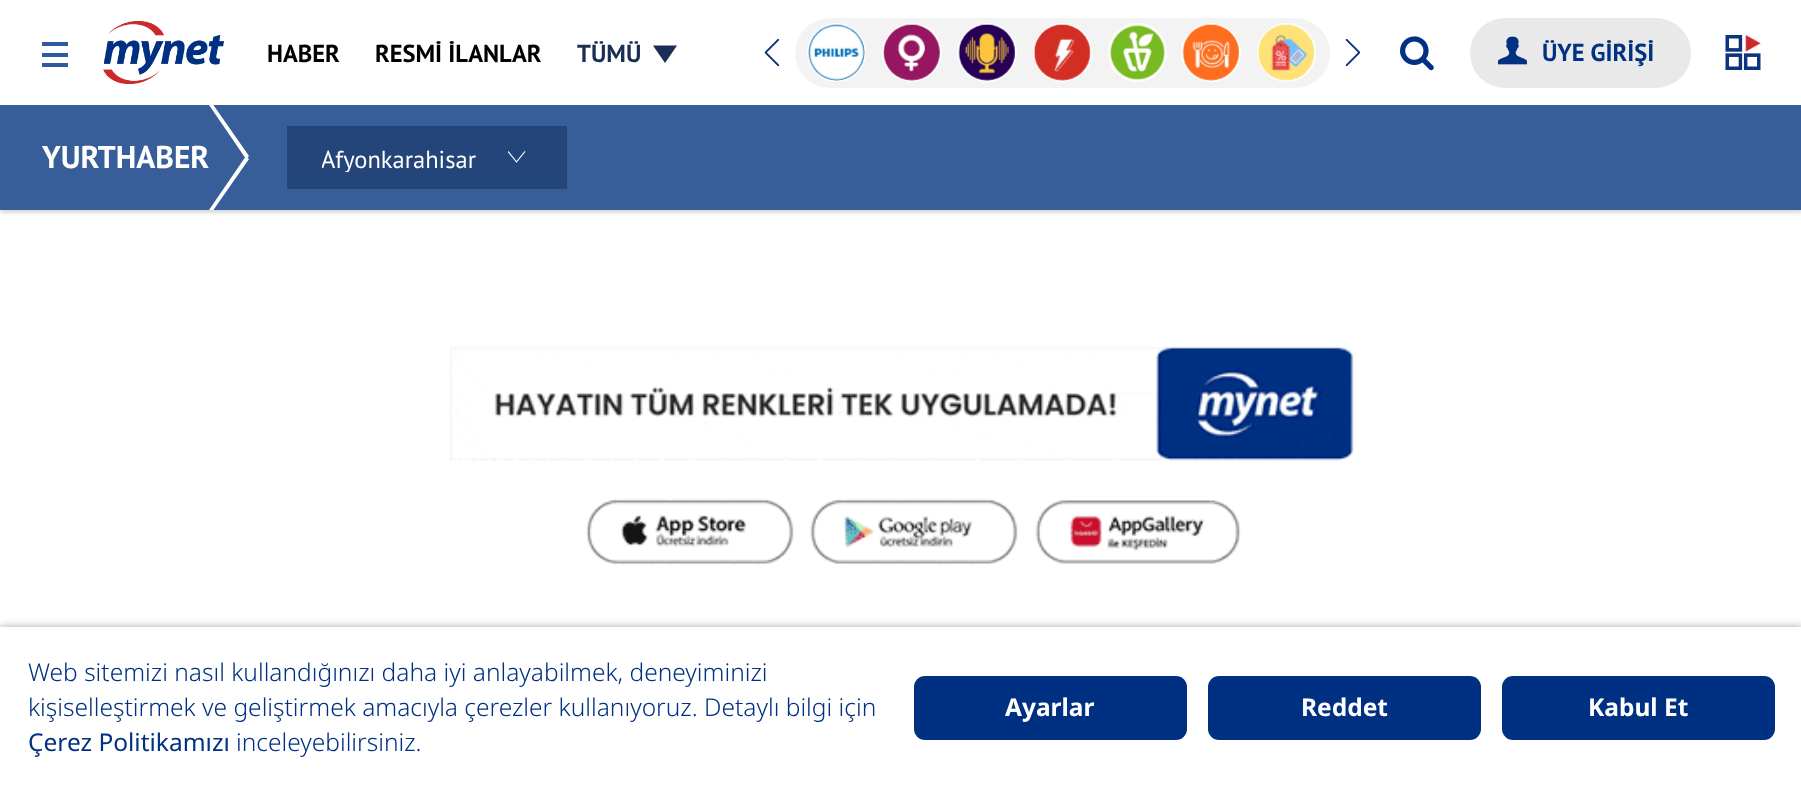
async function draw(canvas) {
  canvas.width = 1801
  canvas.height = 787
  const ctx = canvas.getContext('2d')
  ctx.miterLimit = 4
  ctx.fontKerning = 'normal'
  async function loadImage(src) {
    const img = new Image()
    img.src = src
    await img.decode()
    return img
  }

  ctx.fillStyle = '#fff'
  ctx.fillRect(0, 0, 1801, 787)
  ctx.fillStyle = '#00000033'
  ctx.filter = 'blur(2.5px)'
  ctx.beginPath()
  ctx.rect(0, 107, 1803, 105)
  ctx.fill()
  ctx.filter = 'none'
  ctx.fillStyle = '#fff'
  ctx.fillRect(0, 103, 1801, 2)
  ctx.fillStyle = '#3059a4'
  ctx.fillRect(42, 42, 26, 4)
  ctx.fillRect(42, 53, 26, 4)
  ctx.fillRect(42, 63, 26, 4)
  ctx.drawImage(await loadImage('image0.png'), 103, 21, 121, 63)
  ctx.font = 'bold 24.5px PT Sans'
  ctx.fillStyle = '#000'
  ctx.fillText('HABER', 267, 62)
  ctx.fillText('RESMİ İLANLAR', 375, 62)
  ctx.fillStyle = '#1b2e56'
  ctx.fillText('TÜMÜ', 577, 62)
  ctx.beginPath()
  ctx.moveTo(653, 45.5)
  ctx.lineTo(677, 45.5)
  ctx.lineTo(665, 63)
  ctx.closePath()
  ctx.fill()
  ctx.fillStyle = '#f3f3f3'
  ctx.beginPath()
  ctx.roundRect(795, 18, 535, 70, 35)
  ctx.fill()
  ctx.drawImage(await loadImage('image1.png'), 764, 38, 16, 29)
  ctx.beginPath()
  ctx.arc(836.5, 52.5, 28.5, 0, 2 * Math.PI)
  ctx.strokeStyle = '#fff'
  ctx.lineWidth = 2
  ctx.stroke()
  ctx.drawImage(await loadImage('image2.png'), 808, 24, 57, 57)
  ctx.beginPath()
  ctx.roundRect(883, 24, 58, 57, 28.5)
  ctx.stroke()
  ctx.drawImage(await loadImage('image3.png'), 883, 24, 57, 57)
  ctx.beginPath()
  ctx.roundRect(958, 24, 58, 57, 28.5)
  ctx.stroke()
  ctx.drawImage(await loadImage('image4.png'), 958, 24, 58, 57)
  ctx.beginPath()
  ctx.arc(1062.5, 52.5, 28.5, 0, 2 * Math.PI)
  ctx.stroke()
  ctx.drawImage(await loadImage('image5.png'), 1033, 24, 58, 57)
  ctx.beginPath()
  ctx.arc(1137.5, 52.5, 28.5, 0, 2 * Math.PI)
  ctx.stroke()
  ctx.drawImage(await loadImage('image6.png'), 1109, 24, 56, 56)
  ctx.beginPath()
  ctx.roundRect(1182, 24, 58, 57, 28.5)
  ctx.stroke()
  ctx.drawImage(await loadImage('image7.png'), 1182, 24, 58, 57)
  ctx.beginPath()
  ctx.arc(1286.5, 52.5, 28.5, 0, 2 * Math.PI)
  ctx.stroke()
  ctx.drawImage(await loadImage('image8.png'), 1257, 24, 58, 57)
  ctx.drawImage(await loadImage('image9.png'), 1345, 38, 16, 29)
  ctx.drawImage(await loadImage('image10.png'), 1400, 36, 34, 35)
  ctx.fillStyle = '#e9e9e9'
  ctx.beginPath()
  ctx.roundRect(1470, 18, 221, 70, 35)
  ctx.fill()
  ctx.drawImage(await loadImage('image11.png'), 1498, 36, 29, 29)
  ctx.fillStyle = '#013182'
  ctx.fillText('ÜYE GİRİŞİ', 1542, 61)
  ctx.drawImage(await loadImage('image12.png'), 1725, 35, 36, 35)
  ctx.fillStyle = '#375e99'
  ctx.fillRect(0, 105, 1801, 105)
  ctx.font = 'bold 31.5px PT Sans'
  ctx.fillStyle = '#fff'
  ctx.fillText('YURTHABER', 42, 168)
  ctx.beginPath()
  ctx.moveTo(212, 103)
  ctx.lineTo(249, 156)
  ctx.lineTo(246, 159)
  ctx.lineTo(209, 105)
  ctx.closePath()
  ctx.fill()
  ctx.save()
  ctx.beginPath()
  ctx.rect(42, 105, 210, 105)
  ctx.clip()
  ctx.beginPath()
  ctx.moveTo(209, 210)
  ctx.lineTo(246, 156)
  ctx.lineTo(249, 159)
  ctx.lineTo(212, 212)
  ctx.closePath()
  ctx.fill()
  ctx.restore()
  ctx.fillStyle = '#234579'
  ctx.fillRect(287, 126, 280, 63)
  ctx.drawImage(await loadImage('image13.png'), 508, 151, 18, 12)
  ctx.save()
  ctx.beginPath()
  ctx.rect(322, 147, 175, 25)
  ctx.clip()
  ctx.font = '24.5px PT Sans'
  ctx.fillStyle = '#fff'
  ctx.fillText('Afyonkarahisar', 321, 168)
  ctx.restore()
  ctx.drawImage(await loadImage('image14.png'), 450, 346, 904, 220)
  ctx.fillStyle = '#9ba7b7'
  ctx.filter = 'blur(4.5px)'
  ctx.beginPath()
  ctx.rect(0, 627, 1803, 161)
  ctx.fill()
  ctx.filter = 'none'
  ctx.fillStyle = '#fff'
  ctx.fillRect(0, 627, 1801, 160)
  ctx.font = '300 24.5px Noto Sans'
  ctx.fillStyle = '#013182'
  ctx.fillText('Web sitemizi nasıl kullandığınızı daha iyi anlayabilmek, deneyiminizi', 28, 681)
  ctx.fillText('kişiselleştirmek ve geliştirmek amacıyla çerezler kullanıyoruz. Detaylı bilgi için', 28, 716)
  ctx.font = '24.5px Noto Sans'
  ctx.fillText('Çerez Politikamızı', 28, 751)
  ctx.font = '300 24.5px Noto Sans'
  ctx.fillText('inceleyebilirsiniz.', 236, 751)
  ctx.fillStyle = '#003082'
  ctx.beginPath()
  ctx.roundRect(914, 676, 273, 64, 11)
  ctx.fill()
  ctx.font = 'bold 24.5px Noto Sans'
  ctx.fillStyle = '#fff'
  ctx.fillText('Ayarlar', 1005, 716)
  ctx.fillStyle = '#003082'
  ctx.beginPath()
  ctx.roundRect(1208, 676, 273, 64, 11)
  ctx.fill()
  ctx.fillStyle = '#fff'
  ctx.fillText('Reddet', 1301, 716)
  ctx.fillStyle = '#003082'
  ctx.beginPath()
  ctx.roundRect(1502, 676, 273, 64, 11)
  ctx.fill()
  ctx.fillStyle = '#fff'
  ctx.fillText('Kabul Et', 1588, 716)
}

draw(document.querySelector('canvas'))
